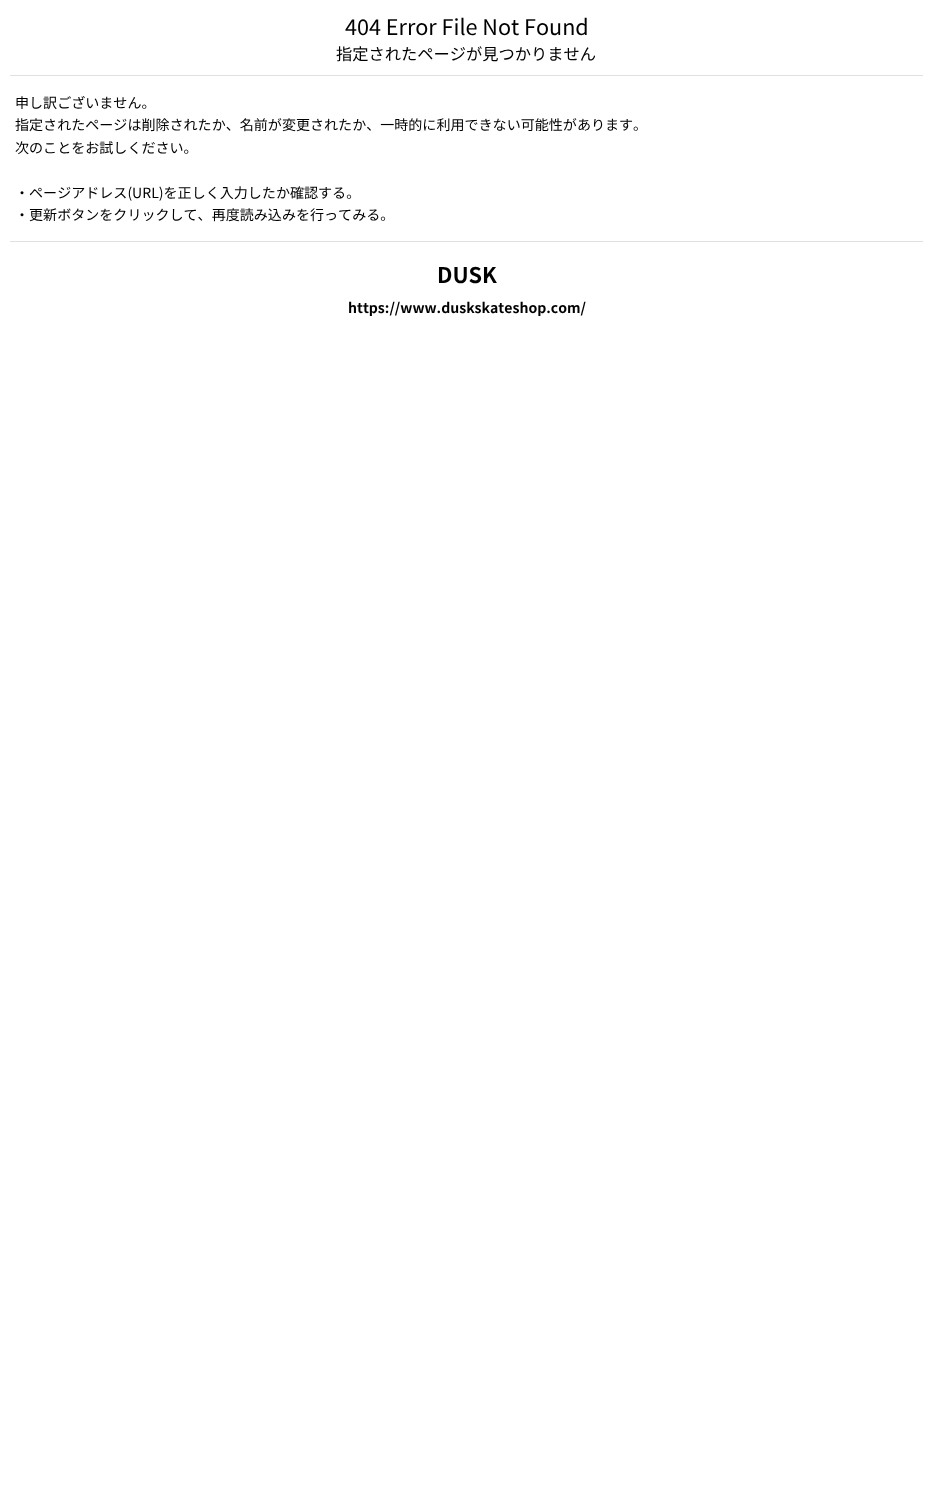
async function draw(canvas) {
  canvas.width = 933
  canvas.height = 1504
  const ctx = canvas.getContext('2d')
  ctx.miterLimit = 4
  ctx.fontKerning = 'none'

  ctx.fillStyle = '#fff'
  ctx.fillRect(0, 0, 933, 1504)
  ctx.font = '21.6px Noto Sans JP'
  ctx.fillStyle = '#000'
  ctx.fillText('404 Error File Not Found', 345, 35)
  ctx.font = '16.25px Noto Sans JP'
  ctx.fillText('指定されたページが見つかりません', 336, 60)
  ctx.fillStyle = '#e0dfe3'
  ctx.fillRect(10, 75, 913, 1)
  ctx.fillRect(10, 241, 913, 1)
  ctx.font = '14.05px Noto Sans JP'
  ctx.fillStyle = '#000'
  ctx.fillText('申し訳ございません。', 15, 108)
  ctx.fillText('指定されたページは削除されたか、名前が変更されたか、一時的に利用できない可能性があります。', 15, 130)
  ctx.fillText('次のことをお試しください。', 15, 153)
  ctx.fillText('・ページアドレス(URL)を正しく入力したか確認する。', 15, 198)
  ctx.fillText('・更新ボタンをクリックして、再度読み込みを行ってみる。', 15, 220)
  ctx.font = 'bold 21.6px Noto Sans JP'
  ctx.fillText('DUSK', 437, 283)
  ctx.font = 'bold 14.05px Noto Sans JP'
  ctx.fillText('https://www.duskskateshop.com/', 348, 313)
}

draw(document.querySelector('canvas'))
